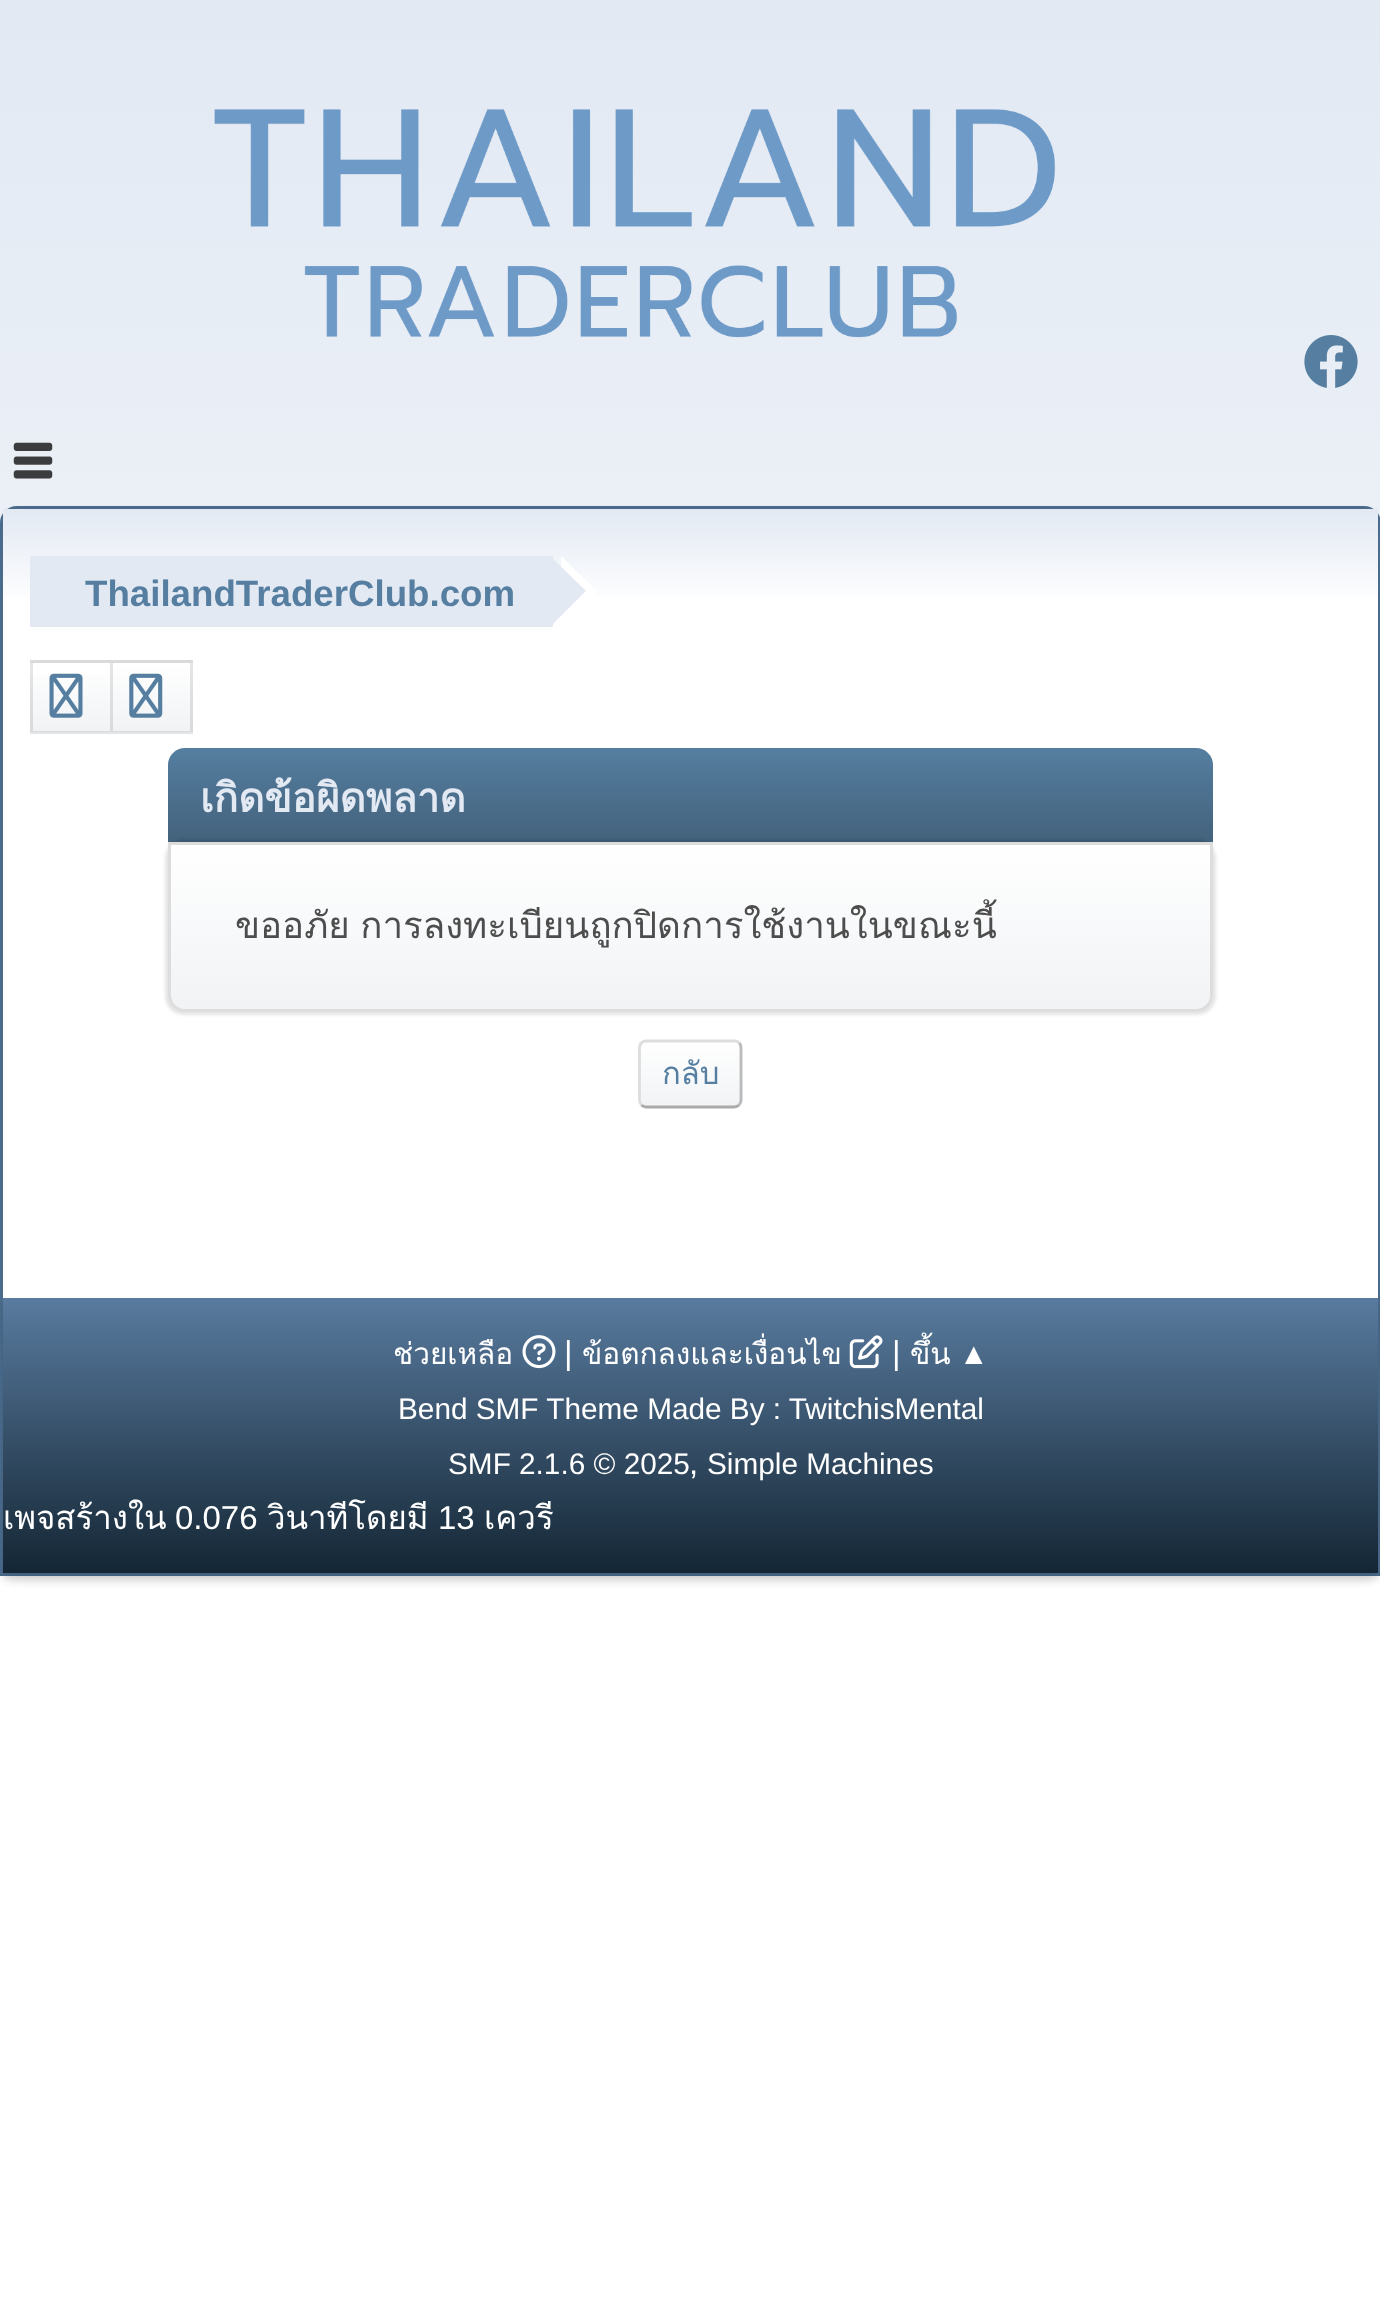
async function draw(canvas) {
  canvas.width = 1380
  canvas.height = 2308
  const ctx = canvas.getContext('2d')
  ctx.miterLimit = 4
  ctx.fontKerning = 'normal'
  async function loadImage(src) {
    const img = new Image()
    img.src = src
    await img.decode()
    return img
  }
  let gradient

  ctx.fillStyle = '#fff'
  ctx.fillRect(0, 0, 1380, 2308)
  gradient = ctx.createLinearGradient(690, 0, 690, 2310)
  gradient.addColorStop(0, '#e2e9f3')
  gradient.addColorStop(0.7, '#fff')
  ctx.fillStyle = gradient
  ctx.fillRect(0, 0, 1380, 1478)
  ctx.drawImage(await loadImage('image0.png'), 214, 109, 842, 229)
  ctx.drawImage(await loadImage('image1.png'), 1304, 335, 54, 53)
  ctx.drawImage(await loadImage('image2.png'), 13, 442, 40, 37)
  ctx.fillStyle = '#0000001a'
  ctx.filter = 'blur(4px)'
  ctx.beginPath()
  ctx.roundRect(0, 512, 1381, 1069, 17)
  ctx.fill()
  ctx.filter = 'none'
  ctx.fillStyle = '#fff'
  ctx.beginPath()
  ctx.moveTo(17, 507.5)
  ctx.lineTo(1364, 507.5)
  ctx.bezierCurveTo(1372.5, 507.5, 1379.5, 514.5, 1379.5, 523)
  ctx.lineTo(1379.5, 1574.5)
  ctx.lineTo(1.5, 1574.5)
  ctx.lineTo(1.5, 523)
  ctx.bezierCurveTo(1.5, 514.5, 8.5, 507.5, 17, 507.5)
  ctx.closePath()
  ctx.fill()
  ctx.strokeStyle = '#4a6b8c'
  ctx.lineWidth = 3
  ctx.stroke()
  gradient = ctx.createLinearGradient(690, 509, 690, 646)
  gradient.addColorStop(0, '#e2e9f3')
  gradient.addColorStop(0.7, '#fff')
  ctx.fillStyle = gradient
  ctx.fillRect(3, 509, 1375, 88)
  ctx.fillStyle = '#e2e9f3'
  ctx.fillRect(30, 556, 523, 71)
  ctx.fillStyle = '#fff'
  ctx.beginPath()
  ctx.moveTo(561, 627)
  ctx.lineTo(561, 556)
  ctx.lineTo(597, 591)
  ctx.closePath()
  ctx.fill()
  ctx.fillStyle = '#e2e9f3'
  ctx.beginPath()
  ctx.moveTo(550, 627)
  ctx.lineTo(550, 556)
  ctx.lineTo(586, 591)
  ctx.closePath()
  ctx.fill()
  ctx.font = 'bold 36.7px Liberation Sans'
  ctx.fillStyle = '#557ea0'
  ctx.fillText('ThailandTraderClub.com', 85, 606)
  gradient = ctx.createLinearGradient(72, 594, 72, 663)
  gradient.addColorStop(0, '#fff')
  gradient.addColorStop(0.95, '#f1f3f5')
  ctx.fillStyle = gradient
  ctx.fillRect(30, 660, 83, 3)
  gradient = ctx.createLinearGradient(72, 663, 72, 732)
  gradient.addColorStop(0, '#fff')
  gradient.addColorStop(0.95, '#f1f3f5')
  ctx.fillStyle = gradient
  ctx.fillRect(30, 675, 80, 57)
  ctx.strokeStyle = '#0000001a'
  ctx.strokeRect(31.5, 661.5, 80, 71)
  ctx.drawImage(await loadImage('image3.png'), 49, 673, 34, 45)
  ctx.fillStyle = '#fff'
  ctx.fillRect(110, 732, 3, 2)
  gradient = ctx.createLinearGradient(151, 594, 151, 663)
  gradient.addColorStop(0, '#fff')
  gradient.addColorStop(0.95, '#f1f3f5')
  ctx.fillStyle = gradient
  ctx.fillRect(110, 660, 83, 3)
  gradient = ctx.createLinearGradient(151, 663, 151, 732)
  gradient.addColorStop(0, '#fff')
  gradient.addColorStop(0.95, '#f1f3f5')
  ctx.fillStyle = gradient
  ctx.fillRect(110, 663, 83, 69)
  ctx.strokeRect(111.5, 661.5, 80, 71)
  ctx.drawImage(await loadImage('image4.png'), 129, 673, 34, 45)
  gradient = ctx.createLinearGradient(690, 748, 690, 842)
  gradient.addColorStop(0, '#557ea0')
  gradient.addColorStop(1, '#43627c')
  ctx.fillStyle = gradient
  ctx.beginPath()
  ctx.roundRect(168, 748, 1045, 94, [17, 17, 0, 0])
  ctx.fill()
  ctx.font = 'bold 40.25px Loma'
  ctx.fillStyle = '#e2e9f3'
  ctx.fillText('เกิดข้อผิดพลาด', 200, 812)
  ctx.fillStyle = '#0000001a'
  ctx.filter = 'blur(1.5px)'
  ctx.beginPath()
  ctx.roundRect(165, 839, 1051, 176, 19)
  ctx.fill()
  ctx.filter = 'none'
  ctx.save()
  ctx.beginPath()
  ctx.roundRect(168, 842, 1045, 170, [0, 0, 17, 17])
  ctx.clip()
  gradient = ctx.createLinearGradient(690, 844, 690, 1009)
  gradient.addColorStop(0, '#fff')
  gradient.addColorStop(1, '#f1f3f5')
  ctx.fillStyle = gradient
  ctx.fillRect(168, 845, 1045, 164)
  ctx.restore()
  ctx.beginPath()
  ctx.roundRect(169.5, 843.5, 1042, 167, [0, 0, 15.5, 15.5])
  ctx.strokeStyle = '#ddd'
  ctx.stroke()
  ctx.wordSpacing = '-2px'
  ctx.font = '36.7px Loma'
  ctx.fillStyle = '#4d4d4d'
  ctx.fillText('ขออภัย การลงทะเบียนถูกปิดการใช้งานในขณะนี้', 235, 938)
  ctx.save()
  ctx.beginPath()
  ctx.roundRect(638, 1040, 105, 68, 8)
  ctx.clip()
  gradient = ctx.createLinearGradient(690, 979, 690, 1042)
  gradient.addColorStop(0, '#fff')
  gradient.addColorStop(1, '#f1f3f5')
  ctx.fillStyle = gradient
  ctx.fillRect(638, 1040, 105, 2)
  gradient = ctx.createLinearGradient(690, 1042, 690, 1106)
  gradient.addColorStop(0, '#fff')
  gradient.addColorStop(1, '#f1f3f5')
  ctx.fillStyle = gradient
  ctx.fillRect(638, 1042, 105, 64)
  ctx.restore()
  ctx.beginPath()
  ctx.moveTo(739, 1043)
  ctx.bezierCurveTo(740.5, 1044, 741, 1046, 741, 1048)
  ctx.lineTo(741, 1100)
  ctx.bezierCurveTo(741, 1102, 740.5, 1103.5, 739, 1105)
  ctx.strokeStyle = '#bbb'
  ctx.lineWidth = 2.8
  ctx.stroke()
  ctx.beginPath()
  ctx.moveTo(739, 1105)
  ctx.bezierCurveTo(738, 1106, 736, 1107, 734, 1107)
  ctx.lineTo(646, 1107)
  ctx.bezierCurveTo(644.5, 1107, 642.5, 1106, 641.5, 1105)
  ctx.strokeStyle = '#aaa'
  ctx.stroke()
  ctx.beginPath()
  ctx.moveTo(641.5, 1105)
  ctx.bezierCurveTo(640, 1103.5, 639.5, 1102, 639.5, 1100)
  ctx.lineTo(639.5, 1048)
  ctx.bezierCurveTo(639.5, 1046, 640, 1044, 641.5, 1043)
  ctx.bezierCurveTo(642.5, 1041.5, 644.5, 1041, 646, 1041)
  ctx.lineTo(734, 1041)
  ctx.bezierCurveTo(736, 1041, 738, 1041.5, 739, 1043)
  ctx.strokeStyle = '#ddd'
  ctx.stroke()
  ctx.wordSpacing = '0px'
  ctx.font = '31px Loma'
  ctx.fillStyle = '#557ea0'
  ctx.fillText('กลับ', 662, 1084)
  ctx.fillStyle = '#0000001a'
  ctx.filter = 'blur(4px)'
  ctx.beginPath()
  ctx.rect(3, 1304, 1375, 275)
  ctx.fill()
  ctx.filter = 'none'
  gradient = ctx.createLinearGradient(690, 1298, 690, 1573)
  gradient.addColorStop(0, '#597b9f')
  gradient.addColorStop(1, '#142634')
  ctx.fillStyle = gradient
  ctx.fillRect(3, 1298, 1375, 275)
  ctx.font = '29.75px Loma'
  ctx.fillStyle = '#fff'
  ctx.fillText('ช่วยเหลือ', 393, 1364)
  ctx.drawImage(await loadImage('image5.png'), 522, 1335, 34, 34)
  ctx.font = '33px Liberation Sans'
  ctx.fillText('|', 564, 1364)
  ctx.font = '29.75px Loma'
  ctx.fillText('ข้อตกลงและเงื่อนไข', 582, 1364)
  ctx.drawImage(await loadImage('image6.png'), 849, 1335, 34, 34)
  ctx.font = '33px Liberation Sans'
  ctx.fillText('|', 892, 1364)
  ctx.font = '29.75px Loma'
  ctx.fillText('ขึ้น', 910, 1364)
  ctx.font = '29.75px Liberation Sans'
  ctx.fillText('▲', 959, 1364)
  ctx.fillText('Bend SMF Theme Made By : TwitchisMental', 398, 1419)
  ctx.fillText('SMF 2.1.6 © 2025', 448, 1474)
  ctx.font = '33px Liberation Sans'
  ctx.fillText(',', 689, 1474)
  ctx.font = '29.75px Liberation Sans'
  ctx.fillText('Simple Machines', 707, 1474)
  ctx.font = '33px Loma'
  ctx.fillText('เพจสร้างใน', 3, 1529)
  ctx.font = '33px Liberation Sans'
  ctx.fillText('0.076', 175, 1529)
  ctx.font = '33px Loma'
  ctx.fillText('วินาทีโดยมี', 267, 1529)
  ctx.font = '33px Liberation Sans'
  ctx.fillText('13', 438, 1529)
  ctx.font = '33px Loma'
  ctx.fillText('เควรี', 484, 1529)
}

draw(document.querySelector('canvas'))
